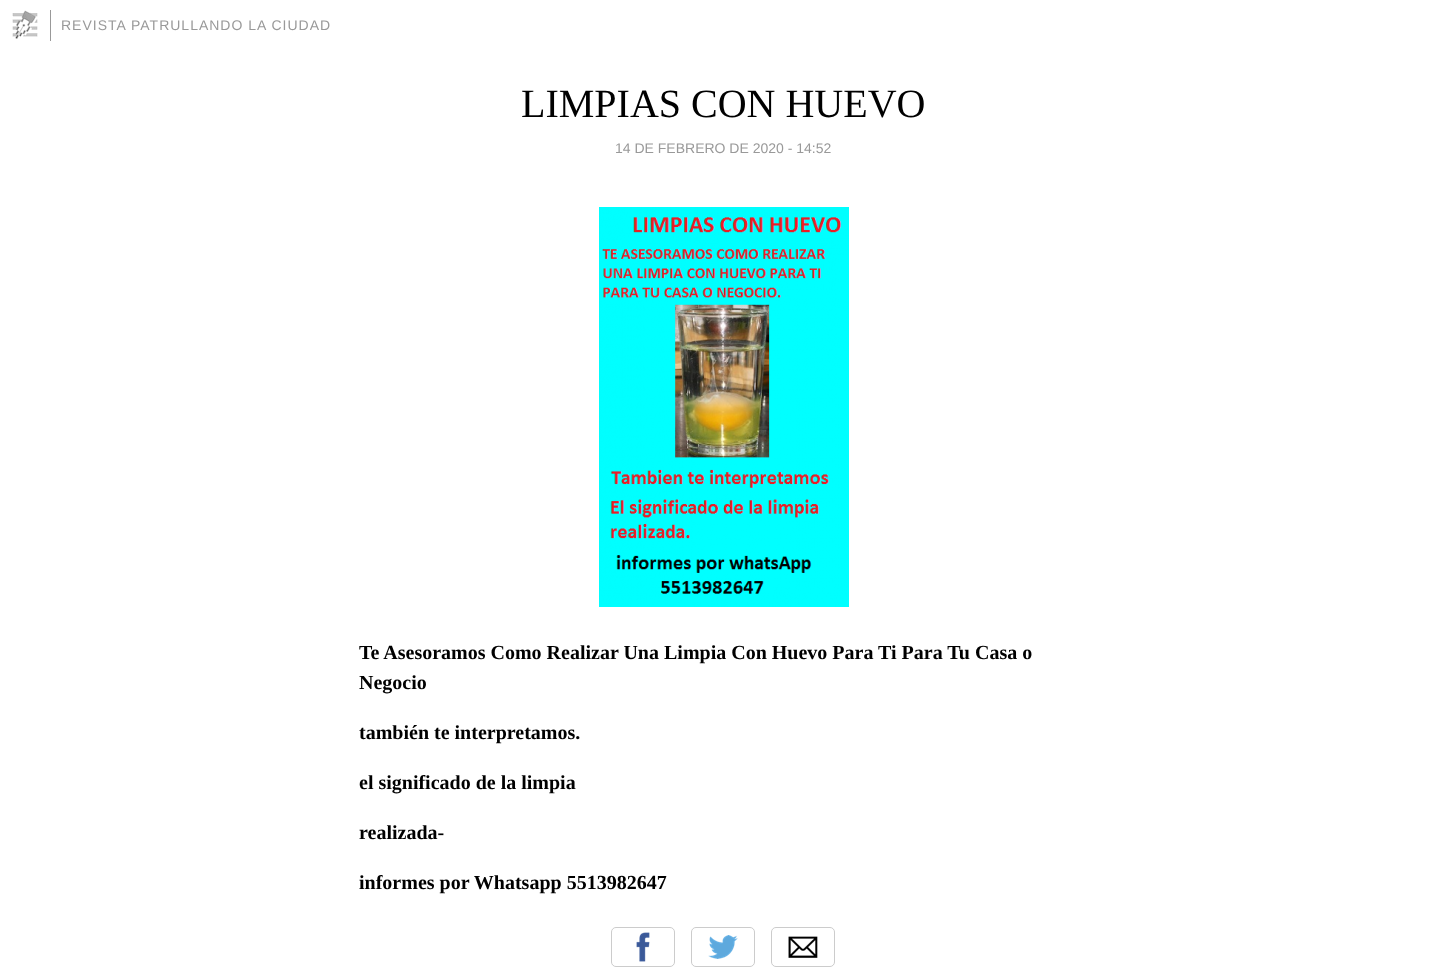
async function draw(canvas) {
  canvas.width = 1447
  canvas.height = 968
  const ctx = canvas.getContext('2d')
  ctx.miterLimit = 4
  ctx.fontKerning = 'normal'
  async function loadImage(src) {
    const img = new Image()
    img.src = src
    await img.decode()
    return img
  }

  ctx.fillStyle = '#fff'
  ctx.fillRect(0, 0, 1447, 968)
  ctx.drawImage(await loadImage('image0.png'), 12, 10, 26, 29)
  ctx.fillStyle = '#999'
  ctx.fillRect(50, 10, 1, 31)
  ctx.letterSpacing = '1px'
  ctx.font = '14px Liberation Sans'
  ctx.fillText('REVISTA PATRULLANDO LA CIUDAD', 61, 30)
  ctx.letterSpacing = '0px'
  ctx.font = '40px Liberation Serif'
  ctx.fillStyle = '#000'
  ctx.fillText('LIMPIAS CON HUEVO', 521, 117)
  ctx.font = '14px Liberation Sans'
  ctx.fillStyle = '#999'
  ctx.fillText('14 DE FEBRERO DE 2020 - 14:52', 615, 153)
  ctx.drawImage(await loadImage('image1.png'), 599, 207, 250, 400)
  ctx.save()
  ctx.beginPath()
  ctx.rect(359, 51, 730, 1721)
  ctx.clip()
  ctx.font = 'bold 20px Liberation Serif'
  ctx.fillStyle = '#000'
  ctx.fillText('Te Asesoramos Como Realizar Una Limpia Con Huevo Para Ti Para Tu Casa o', 359, 659)
  ctx.restore()
  ctx.font = 'bold 20px Liberation Serif'
  ctx.fillStyle = '#000'
  ctx.fillText('Negocio', 359, 689)
  ctx.fillText('también te interpretamos.', 359, 739)
  ctx.fillText('el significado de la limpia', 359, 789)
  ctx.fillText('realizada-', 359, 839)
  ctx.fillText('informes por Whatsapp 5513982647', 359, 889)
  ctx.drawImage(await loadImage('image2.png'), 636, 932, 14, 30)
  ctx.beginPath()
  ctx.roundRect(611.5, 927.5, 63, 39, 4.5)
  ctx.strokeStyle = '#ccc'
  ctx.stroke()
  ctx.drawImage(await loadImage('image3.png'), 708, 935, 30, 24)
  ctx.beginPath()
  ctx.roundRect(691.5, 927.5, 63, 39, 4.5)
  ctx.stroke()
  ctx.drawImage(await loadImage('image4.png'), 788, 936, 30, 22)
  ctx.beginPath()
  ctx.roundRect(771.5, 927.5, 63, 39, 4.5)
  ctx.stroke()
}

draw(document.querySelector('canvas'))
